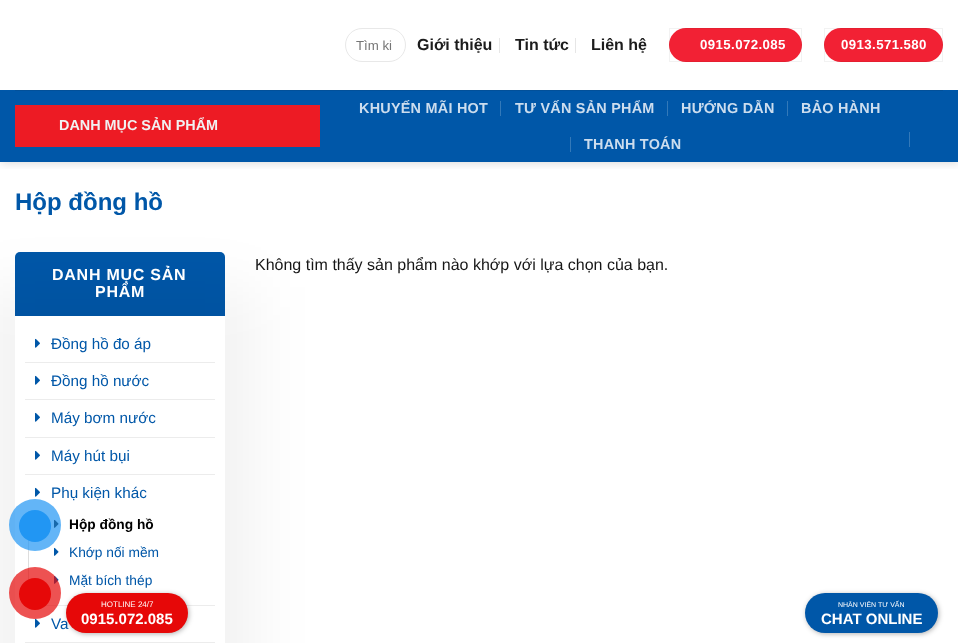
async function draw(canvas) {
  canvas.width = 958
  canvas.height = 643
  const ctx = canvas.getContext('2d')
  ctx.miterLimit = 4
  ctx.fontKerning = 'normal'
  async function loadImage(src) {
    const img = new Image()
    img.src = src
    await img.decode()
    return img
  }

  ctx.fillStyle = '#fff'
  ctx.fillRect(0, 0, 958, 643)
  ctx.save()
  ctx.beginPath()
  ctx.rect(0, 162, 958, 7)
  ctx.clip()
  ctx.fillStyle = '#00000026'
  ctx.filter = 'blur(5px)'
  ctx.beginPath()
  ctx.rect(1, 1, 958, 162)
  ctx.fill()
  ctx.filter = 'none'
  ctx.restore()
  ctx.beginPath()
  ctx.roundRect(345.5, 28.5, 60, 33, 16.5)
  ctx.strokeStyle = '#e8e8e8'
  ctx.stroke()
  ctx.font = '13.25px Liberation Sans'
  ctx.fillStyle = '#757575'
  ctx.fillText('Tìm ki', 356, 50)
  ctx.font = 'bold 16px Liberation Sans'
  ctx.fillStyle = '#1c1c1c'
  ctx.fillText('Giới thiệu', 417, 50)
  ctx.fillStyle = '#e6e6e6'
  ctx.fillRect(499, 38, 1, 15)
  ctx.fillStyle = '#1c1c1c'
  ctx.fillText('Tin tức', 515, 50)
  ctx.fillStyle = '#e6e6e6'
  ctx.fillRect(575, 38, 1, 15)
  ctx.fillStyle = '#1c1c1c'
  ctx.fillText('Liên hệ', 591, 50)
  ctx.fillStyle = '#f22134'
  ctx.beginPath()
  ctx.roundRect(669, 28, 133, 34, 17)
  ctx.fill()
  ctx.strokeStyle = '#0000000d'
  ctx.strokeRect(669.5, 28.5, 132, 33)
  ctx.letterSpacing = '0.4px'
  ctx.font = 'bold 13.25px Liberation Sans'
  ctx.fillStyle = '#fff'
  ctx.fillText('0915.072.085', 700, 49)
  ctx.fillStyle = '#f22134'
  ctx.beginPath()
  ctx.roundRect(824, 28, 119, 34, 17)
  ctx.fill()
  ctx.strokeRect(824.5, 28.5, 118, 33)
  ctx.fillStyle = '#fff'
  ctx.fillText('0913.571.580', 841, 49)
  ctx.fillStyle = '#0057a8'
  ctx.fillRect(0, 90, 958, 72)
  ctx.fillStyle = '#025099'
  ctx.fillRect(15, 90, 928, 1)
  ctx.fillStyle = '#ed1b24'
  ctx.fillRect(15, 105, 305, 42)
  ctx.letterSpacing = '0px'
  ctx.font = 'bold 14.4px Liberation Sans'
  ctx.fillStyle = '#f1f1f1'
  ctx.fillText('DANH MỤC SẢN PHẨM', 59, 130)
  ctx.letterSpacing = '0.25px'
  ctx.fillStyle = '#cde'
  ctx.fillText('KHUYẾN MÃI HOT', 359, 113)
  ctx.fillStyle = '#3379b9'
  ctx.fillRect(500, 101, 1, 15)
  ctx.fillStyle = '#cde'
  ctx.fillText('TƯ VẤN SẢN PHẨM', 515, 113)
  ctx.fillStyle = '#3379b9'
  ctx.fillRect(667, 101, 1, 15)
  ctx.fillStyle = '#cde'
  ctx.fillText('HƯỚNG DẪN', 681, 113)
  ctx.fillStyle = '#3379b9'
  ctx.fillRect(787, 101, 1, 15)
  ctx.fillStyle = '#cde'
  ctx.fillText('BẢO HÀNH', 801, 113)
  ctx.fillStyle = '#3379b9'
  ctx.fillRect(570, 137, 1, 15)
  ctx.fillStyle = '#cde'
  ctx.fillText('THANH TOÁN', 584, 149)
  ctx.fillStyle = '#3379b9'
  ctx.fillRect(909, 132, 1, 15)
  ctx.letterSpacing = '0px'
  ctx.font = 'bold 24px Liberation Sans'
  ctx.fillStyle = '#0057a8'
  ctx.fillText('Hộp đồng hồ', 15, 210)
  ctx.beginPath()
  ctx.roundRect(15, 252, 210, 64, [5, 5, 0, 0])
  ctx.fill()
  ctx.save()
  ctx.beginPath()
  ctx.moveTo(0, 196)
  ctx.lineTo(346, 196)
  ctx.lineTo(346, 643)
  ctx.lineTo(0, 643)
  ctx.closePath()
  ctx.moveTo(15, 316)
  ctx.lineTo(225, 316)
  ctx.lineTo(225, 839)
  ctx.lineTo(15, 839)
  ctx.closePath()
  ctx.clip('evenodd')
  ctx.fillStyle = '#0000000d'
  ctx.filter = 'blur(30px)'
  ctx.beginPath()
  ctx.rect(-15, 287, 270, 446)
  ctx.fill()
  ctx.filter = 'none'
  ctx.restore()
  ctx.letterSpacing = '0.75px'
  ctx.font = 'bold 16px Liberation Sans'
  ctx.fillStyle = '#fff'
  ctx.fillText('DANH MỤC SẢN', 52, 280)
  ctx.fillText('PHẨM', 95, 297)
  ctx.drawImage(await loadImage('image0.png'), 35, 338, 5, 10)
  ctx.letterSpacing = '0px'
  ctx.font = '15.25px Liberation Sans'
  ctx.fillStyle = '#0057a8'
  ctx.fillText('Đồng hồ đo áp', 51, 349)
  ctx.fillStyle = '#ececec'
  ctx.fillRect(25, 362, 190, 1)
  ctx.drawImage(await loadImage('image0.png'), 35, 375, 5, 10)
  ctx.fillStyle = '#0057a8'
  ctx.fillText('Đồng hồ nước', 51, 386)
  ctx.fillStyle = '#ececec'
  ctx.fillRect(25, 399, 190, 1)
  ctx.drawImage(await loadImage('image0.png'), 35, 412, 5, 10)
  ctx.fillStyle = '#0057a8'
  ctx.fillText('Máy bơm nước', 51, 423)
  ctx.fillStyle = '#ececec'
  ctx.fillRect(25, 437, 190, 1)
  ctx.drawImage(await loadImage('image0.png'), 35, 450, 5, 10)
  ctx.fillStyle = '#0057a8'
  ctx.fillText('Máy hút bụi', 51, 461)
  ctx.fillStyle = '#ececec'
  ctx.fillRect(25, 474, 190, 1)
  ctx.drawImage(await loadImage('image0.png'), 35, 487, 5, 10)
  ctx.fillStyle = '#0057a8'
  ctx.fillText('Phụ kiện khác', 51, 498)
  ctx.fillStyle = '#ddd'
  ctx.fillRect(28, 511, 1, 69)
  ctx.drawImage(await loadImage('image1.png'), 54, 519, 5, 9)
  ctx.font = 'bold 13.75px Liberation Sans'
  ctx.fillStyle = '#000'
  ctx.fillText('Hộp đồng hồ', 69, 529)
  ctx.drawImage(await loadImage('image2.png'), 54, 547, 5, 9)
  ctx.font = '13.75px Liberation Sans'
  ctx.fillStyle = '#0057a8'
  ctx.fillText('Khớp nối mềm', 69, 557)
  ctx.drawImage(await loadImage('image2.png'), 54, 575, 5, 9)
  ctx.fillText('Mặt bích thép', 69, 585)
  ctx.fillStyle = '#ececec'
  ctx.fillRect(45, 605, 170, 1)
  ctx.drawImage(await loadImage('image0.png'), 35, 618, 5, 10)
  ctx.font = '15.25px Liberation Sans'
  ctx.fillStyle = '#0057a8'
  ctx.fillText('Va', 51, 629)
  ctx.fillStyle = '#ececec'
  ctx.fillRect(25, 642, 190, 1)
  ctx.font = '16px Liberation Sans'
  ctx.fillStyle = '#161616'
  ctx.fillText('Không tìm thấy sản phẩm nào khớp với lựa chọn của bạn.', 255, 270)
  ctx.fillStyle = '#2196f3b3'
  ctx.beginPath()
  ctx.arc(35, 525, 26, 0, 2 * Math.PI)
  ctx.fill()
  ctx.fillStyle = '#2196f3'
  ctx.beginPath()
  ctx.arc(35, 526, 16, 0, 2 * Math.PI)
  ctx.fill()
  ctx.fillStyle = '#0000004d'
  ctx.filter = 'blur(2.5px)'
  ctx.beginPath()
  ctx.roundRect(67, 594, 122, 40, 20)
  ctx.fill()
  ctx.filter = 'none'
  ctx.fillStyle = '#e60808b3'
  ctx.beginPath()
  ctx.arc(35, 593, 26, 0, 2 * Math.PI)
  ctx.fill()
  ctx.fillStyle = '#e60808'
  ctx.beginPath()
  ctx.arc(35, 594, 16, 0, 2 * Math.PI)
  ctx.fill()
  ctx.beginPath()
  ctx.roundRect(66, 593, 122, 40, 20)
  ctx.fill()
  ctx.font = '8px Liberation Sans'
  ctx.fillStyle = '#fff'
  ctx.fillText('HOTLINE 24/7', 101, 607)
  ctx.font = 'bold 15px Liberation Sans'
  ctx.fillText('0915.072.085', 81, 624)
  ctx.fillStyle = '#0000004d'
  ctx.filter = 'blur(2.5px)'
  ctx.beginPath()
  ctx.roundRect(806, 594, 133, 40, 20)
  ctx.fill()
  ctx.filter = 'none'
  ctx.fillStyle = '#0057a8'
  ctx.beginPath()
  ctx.roundRect(805, 593, 133, 40, 20)
  ctx.fill()
  ctx.font = '7px Liberation Sans'
  ctx.fillStyle = '#fff'
  ctx.fillText('NHÂN VIÊN TƯ VẤN', 838, 607)
  ctx.font = 'bold 15px Liberation Sans'
  ctx.fillText('CHAT ONLINE', 821, 624)
}

draw(document.querySelector('canvas'))
